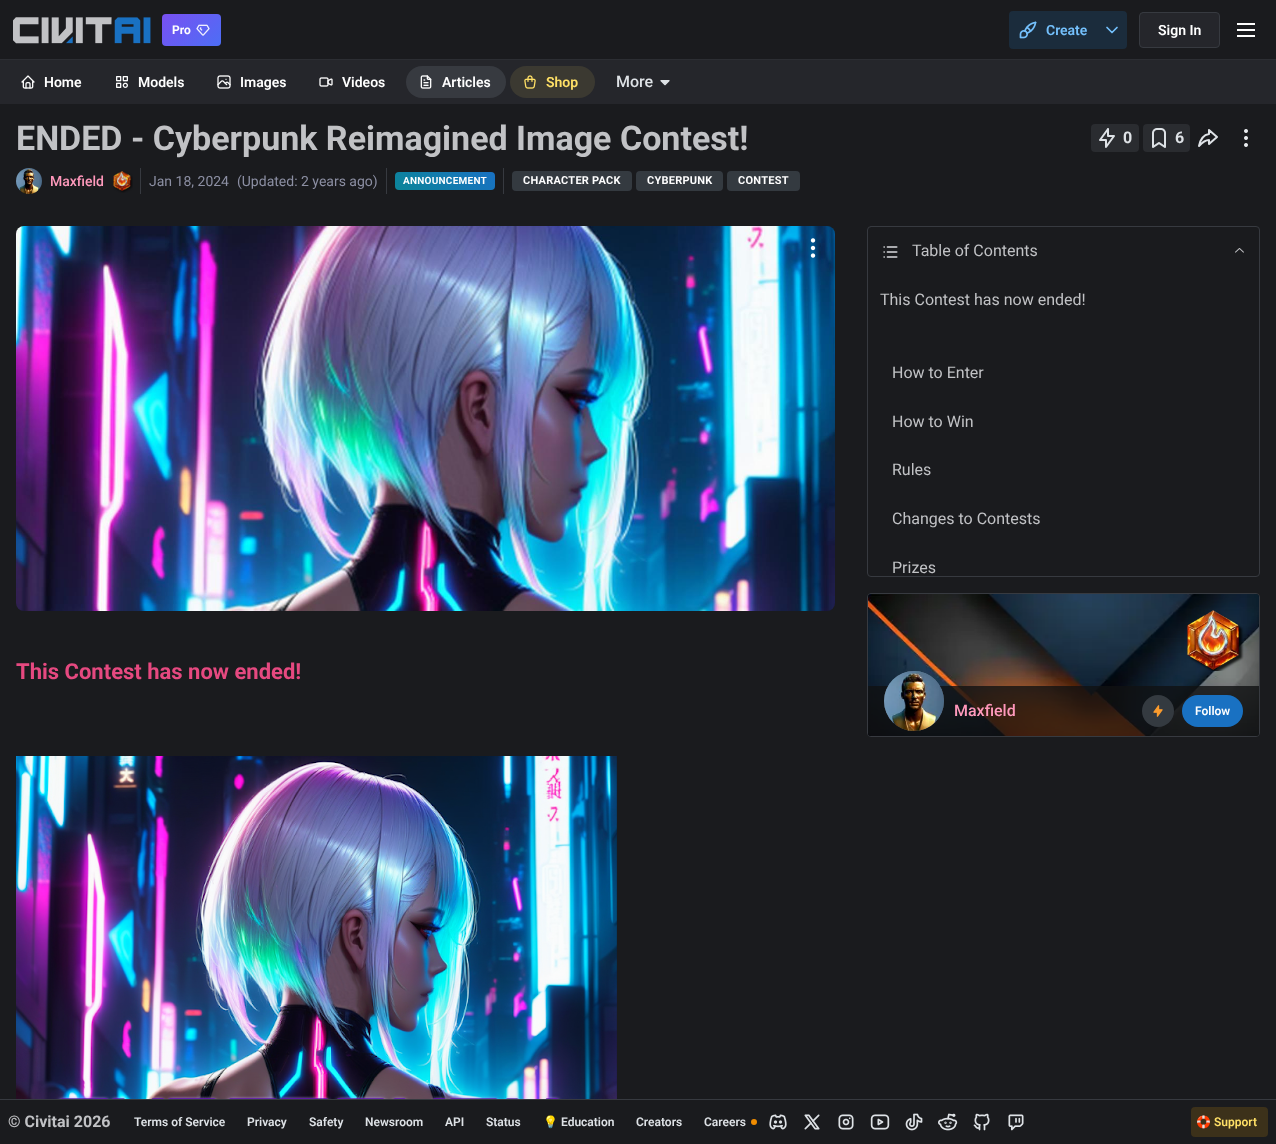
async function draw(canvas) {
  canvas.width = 1276
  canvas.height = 1144
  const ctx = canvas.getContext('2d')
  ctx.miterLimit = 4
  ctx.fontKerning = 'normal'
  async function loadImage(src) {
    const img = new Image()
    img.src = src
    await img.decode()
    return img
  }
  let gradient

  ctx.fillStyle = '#1a1b1e'
  ctx.fillRect(0, 0, 1276, 1144)
  ctx.fillStyle = '#2c2e33'
  ctx.fillRect(0, 59, 1276, 1)
  ctx.drawImage(await loadImage('image0.png'), 13, 17, 138, 27)
  gradient = ctx.createLinearGradient(169, 7.2, 214, 53)
  gradient.addColorStop(0, '#7950f2')
  gradient.addColorStop(1, '#4c6ef5')
  ctx.fillStyle = gradient
  ctx.beginPath()
  ctx.roundRect(162, 14, 59, 32, 4)
  ctx.fill()
  ctx.font = 'bold 12px Roboto'
  ctx.fillStyle = '#fefefe'
  ctx.fillText('Pro', 172, 34)
  ctx.drawImage(await loadImage('image1.png'), 196, 24, 14, 12)
  ctx.fillStyle = '#1b2c3c'
  ctx.beginPath()
  ctx.roundRect(1009, 11, 88, 38, [4, 0, 0, 4])
  ctx.fill()
  ctx.drawImage(await loadImage('image2.png'), 1019, 21, 18, 18)
  ctx.font = '600 14px Roboto'
  ctx.fillStyle = '#74c0fc'
  ctx.fillText('Create', 1046, 35)
  ctx.fillStyle = '#1b2c3c'
  ctx.beginPath()
  ctx.roundRect(1097, 11, 30, 38, [0, 4, 4, 0])
  ctx.fill()
  ctx.beginPath()
  ctx.moveTo(1107, 27.5)
  ctx.lineTo(1112, 32.5)
  ctx.lineTo(1117, 27.5)
  ctx.strokeStyle = '#74c0fc'
  ctx.lineWidth = 1.7
  ctx.lineCap = 'round'
  ctx.lineJoin = 'round'
  ctx.stroke()
  ctx.fillStyle = '#25262b'
  ctx.beginPath()
  ctx.roundRect(1139.5, 12.5, 80, 35, 3.5)
  ctx.fill()
  ctx.strokeStyle = '#373a40'
  ctx.lineWidth = 1
  ctx.lineJoin = 'miter'
  ctx.stroke()
  ctx.fillStyle = '#fefefe'
  ctx.fillText('Sign In', 1158, 35)
  ctx.fillRect(1237, 29, 18, 2)
  ctx.fillRect(1237, 23, 18, 2)
  ctx.fillRect(1237, 35, 18, 2)
  ctx.fillStyle = '#25262b'
  ctx.fillRect(0, 60, 1276, 44)
  ctx.drawImage(await loadImage('image3.png'), 21, 75, 14, 14)
  ctx.fillStyle = '#fefefe'
  ctx.fillText('Home', 44, 87)
  ctx.drawImage(await loadImage('image4.png'), 116, 76, 12, 12)
  ctx.fillText('Models', 138, 87)
  ctx.drawImage(await loadImage('image5.png'), 217, 75, 14, 14)
  ctx.fillText('Images', 240, 87)
  ctx.drawImage(await loadImage('image6.png'), 319, 77, 14, 10)
  ctx.fillText('Videos', 342, 87)
  ctx.fillStyle = '#373a40'
  ctx.beginPath()
  ctx.roundRect(406, 66, 100, 32, 16)
  ctx.fill()
  ctx.drawImage(await loadImage('image7.png'), 420, 75, 12, 14)
  ctx.fillStyle = '#fefefe'
  ctx.fillText('Articles', 442, 87)
  ctx.fillStyle = '#3b3931'
  ctx.beginPath()
  ctx.roundRect(510, 66, 85, 32, 16)
  ctx.fill()
  ctx.drawImage(await loadImage('image8.png'), 524, 75, 12, 14)
  ctx.fillStyle = '#ffe066'
  ctx.fillText('Shop', 546, 87)
  ctx.font = '500 16px Roboto'
  ctx.fillStyle = '#dee2e6'
  ctx.fillText('More', 616, 87)
  ctx.drawImage(await loadImage('image9.png'), 660, 80, 10, 6)
  ctx.font = 'bold 34px Roboto'
  ctx.fillStyle = '#c1c2c5'
  ctx.fillText('ENDED - Cyberpunk Reimagined Image Contest!', 16, 150)
  ctx.fillStyle = '#2a2c30'
  ctx.beginPath()
  ctx.roundRect(1091, 124, 48, 28, 4)
  ctx.fill()
  ctx.beginPath()
  ctx.moveTo(1108, 129)
  ctx.lineTo(1108, 136)
  ctx.lineTo(1114, 136)
  ctx.lineTo(1106, 147)
  ctx.lineTo(1106, 140)
  ctx.lineTo(1100, 140)
  ctx.lineTo(1108, 129)
  ctx.strokeStyle = '#dee2e6'
  ctx.lineWidth = 2
  ctx.lineJoin = 'round'
  ctx.stroke()
  ctx.letterSpacing = '0.25px'
  ctx.font = 'bold 16px Roboto'
  ctx.fillStyle = '#dee2e6'
  ctx.fillText('0', 1123, 143)
  ctx.fillStyle = '#2a2c30'
  ctx.beginPath()
  ctx.roundRect(1143, 124, 47, 28, 4)
  ctx.fill()
  ctx.drawImage(await loadImage('image10.png'), 1152, 128, 14, 20)
  ctx.fillStyle = '#dee2e6'
  ctx.fillText('6', 1175, 143)
  ctx.beginPath()
  ctx.moveTo(1209, 130)
  ctx.lineTo(1209, 134)
  ctx.bezierCurveTo(1202.5, 135, 1200, 141, 1199, 146)
  ctx.bezierCurveTo(1199, 146, 1204.5, 140, 1209, 140)
  ctx.lineTo(1209, 144)
  ctx.lineTo(1217, 137)
  ctx.closePath()
  ctx.stroke()
  ctx.drawImage(await loadImage('image11.png'), 1244, 129, 4, 18)
  ctx.drawImage(await loadImage('image12.png'), 16, 168, 26, 26)
  ctx.letterSpacing = '0px'
  ctx.font = '500 14px Roboto'
  gradient = ctx.createLinearGradient(77, 171, 77, 191)
  gradient.addColorStop(0, '#ff90b6')
  gradient.addColorStop(1, '#ffa1c1')
  ctx.fillStyle = gradient
  ctx.fillText('Maxfield', 50, 186)
  ctx.drawImage(await loadImage('image13.png'), 113, 171, 20, 22)
  ctx.fillStyle = '#373a40'
  ctx.fillRect(140, 168, 1, 26)
  ctx.font = '14px Roboto'
  ctx.fillStyle = '#8c8fa3'
  ctx.fillText('Jan 18, 2024', 149, 186)
  ctx.fillText('(Updated: 2 years ago)', 237, 186)
  ctx.fillStyle = '#373a40'
  ctx.fillRect(386, 168, 1, 26)
  gradient = ctx.createLinearGradient(416, 211, 475, 152)
  gradient.addColorStop(0, '#0c8599')
  gradient.addColorStop(1, '#1971c2')
  ctx.fillStyle = gradient
  ctx.beginPath()
  ctx.roundRect(395, 172, 100, 18, 4)
  ctx.fill()
  ctx.letterSpacing = '0.25px'
  ctx.font = 'bold 10px Roboto'
  ctx.fillStyle = '#fefefe'
  ctx.fillText('ANNOUNCEMENT', 403, 184)
  ctx.fillStyle = '#373a40'
  ctx.fillRect(503, 168, 1, 26)
  ctx.fillStyle = '#343a40'
  ctx.beginPath()
  ctx.roundRect(512, 171, 120, 20, 4)
  ctx.fill()
  ctx.font = 'bold 11px Roboto'
  ctx.fillStyle = '#fefefe'
  ctx.fillText('CHARACTER PACK', 523, 184)
  ctx.fillStyle = '#343a40'
  ctx.beginPath()
  ctx.roundRect(636, 171, 87, 20, 4)
  ctx.fill()
  ctx.fillStyle = '#fefefe'
  ctx.fillText('CYBERPUNK', 647, 184)
  ctx.fillStyle = '#343a40'
  ctx.beginPath()
  ctx.roundRect(727, 171, 73, 20, 4)
  ctx.fill()
  ctx.fillStyle = '#fefefe'
  ctx.fillText('CONTEST', 738, 184)
  ctx.drawImage(await loadImage('image14.png'), 16, 226, 819, 385)
  ctx.drawImage(await loadImage('image15.png'), 810, 238, 6, 20)
  ctx.letterSpacing = '0px'
  ctx.font = 'bold 22px Roboto'
  ctx.fillStyle = '#e64980'
  ctx.fillText('This Contest has now ended!', 16, 679)
  ctx.drawImage(await loadImage('image16.png'), 16, 756, 601, 343)
  ctx.beginPath()
  ctx.roundRect(867.5, 226.5, 392, 350, 3.5)
  ctx.strokeStyle = '#373a40'
  ctx.lineWidth = 1
  ctx.lineJoin = 'miter'
  ctx.stroke()
  ctx.drawImage(await loadImage('image17.png'), 883, 246, 15, 12)
  ctx.font = '16px Roboto'
  ctx.fillStyle = '#c1c2c5'
  ctx.fillText('Table of Contents', 912, 256)
  ctx.drawImage(await loadImage('image18.png'), 1235, 248, 9, 5)
  ctx.fillText('This Contest has now ended!', 880, 305)
  ctx.fillText('How to Enter', 892, 378)
  ctx.fillText('How to Win', 892, 427)
  ctx.fillText('Rules', 892, 475)
  ctx.fillText('Changes to Contests', 892, 524)
  ctx.fillText('Prizes', 892, 573)
  ctx.beginPath()
  ctx.roundRect(867.5, 593.5, 392, 143, 3.5)
  ctx.stroke()
  ctx.drawImage(await loadImage('image19.png'), 868, 594, 391, 142)
  ctx.drawImage(await loadImage('image20.png'), 1187, 610, 57, 61)
  ctx.fillStyle = '#101113cc'
  ctx.beginPath()
  ctx.roundRect(868, 686, 391, 50, [0, 0, 3, 3])
  ctx.fill()
  ctx.fillStyle = '#ffffff4f'
  ctx.beginPath()
  ctx.arc(914, 701, 30, 0, 2 * Math.PI)
  ctx.fill()
  ctx.drawImage(await loadImage('image21.png'), 884, 671, 60, 60)
  ctx.font = '500 16px Roboto'
  gradient = ctx.createLinearGradient(985, 699, 985, 723)
  gradient.addColorStop(0, '#ff90b6')
  gradient.addColorStop(1, '#ffa1c1')
  ctx.fillStyle = gradient
  ctx.fillText('Maxfield', 954, 716)
  ctx.fillStyle = '#343a40'
  ctx.beginPath()
  ctx.arc(1158, 711, 16, 0, 2 * Math.PI)
  ctx.fill()
  ctx.drawImage(await loadImage('image22.png'), 1153, 705, 10, 12)
  ctx.fillStyle = '#1971c2'
  ctx.beginPath()
  ctx.roundRect(1182, 695, 61, 32, 16)
  ctx.fill()
  ctx.font = '600 12px Roboto'
  ctx.fillStyle = '#fefefe'
  ctx.fillText('Follow', 1195, 715)
  ctx.fillStyle = '#373a40'
  ctx.fillRect(0, 1099, 1276, 1)
  ctx.font = 'bold 16px Roboto'
  ctx.fillStyle = '#c1c2c5'
  ctx.fillText('© Civitai 2026', 8, 1127)
  ctx.font = '600 12px Roboto'
  ctx.fillStyle = '#dee2e6'
  ctx.fillText('Terms of Service', 134, 1126)
  ctx.fillText('Privacy', 247, 1126)
  ctx.fillText('Safety', 309, 1126)
  ctx.fillText('Newsroom', 365, 1126)
  ctx.fillText('API', 445, 1126)
  ctx.fillText('Status', 486, 1126)
  ctx.save()
  ctx.beginPath()
  ctx.rect(543, 1108, 71, 28)
  ctx.clip()
  ctx.font = 'bold 12px Noto Color Emoji'
  ctx.fillText('💡', 543, 1126)
  ctx.restore()
  ctx.fillText('Education', 561, 1126)
  ctx.fillText('Creators', 636, 1126)
  ctx.fillText('Careers', 704, 1126)
  ctx.fillStyle = '#f08c00'
  ctx.beginPath()
  ctx.arc(754, 1122, 3, 0, 2 * Math.PI)
  ctx.fill()
  ctx.drawImage(await loadImage('image23.png'), 769, 1114, 18, 16)
  ctx.drawImage(await loadImage('image24.png'), 804, 1114, 16, 16)
  ctx.drawImage(await loadImage('image25.png'), 838, 1114, 16, 16)
  ctx.drawImage(await loadImage('image26.png'), 870, 1114, 20, 16)
  ctx.drawImage(await loadImage('image27.png'), 905, 1113, 18, 18)
  ctx.drawImage(await loadImage('image28.png'), 938, 1113, 20, 18)
  ctx.drawImage(await loadImage('image29.png'), 973, 1113, 17, 18)
  ctx.drawImage(await loadImage('image30.png'), 1008, 1114, 16, 17)
  ctx.fillStyle = '#3c311a'
  ctx.beginPath()
  ctx.roundRect(1191, 1107, 77, 30, 4)
  ctx.fill()
  ctx.font = 'bold 12px Noto Color Emoji'
  ctx.fillStyle = '#ffe066'
  ctx.fillText('🛟', 1196, 1126)
  ctx.font = '600 12px Roboto'
  ctx.fillText('Support', 1214, 1126)
}

draw(document.querySelector('canvas'))
